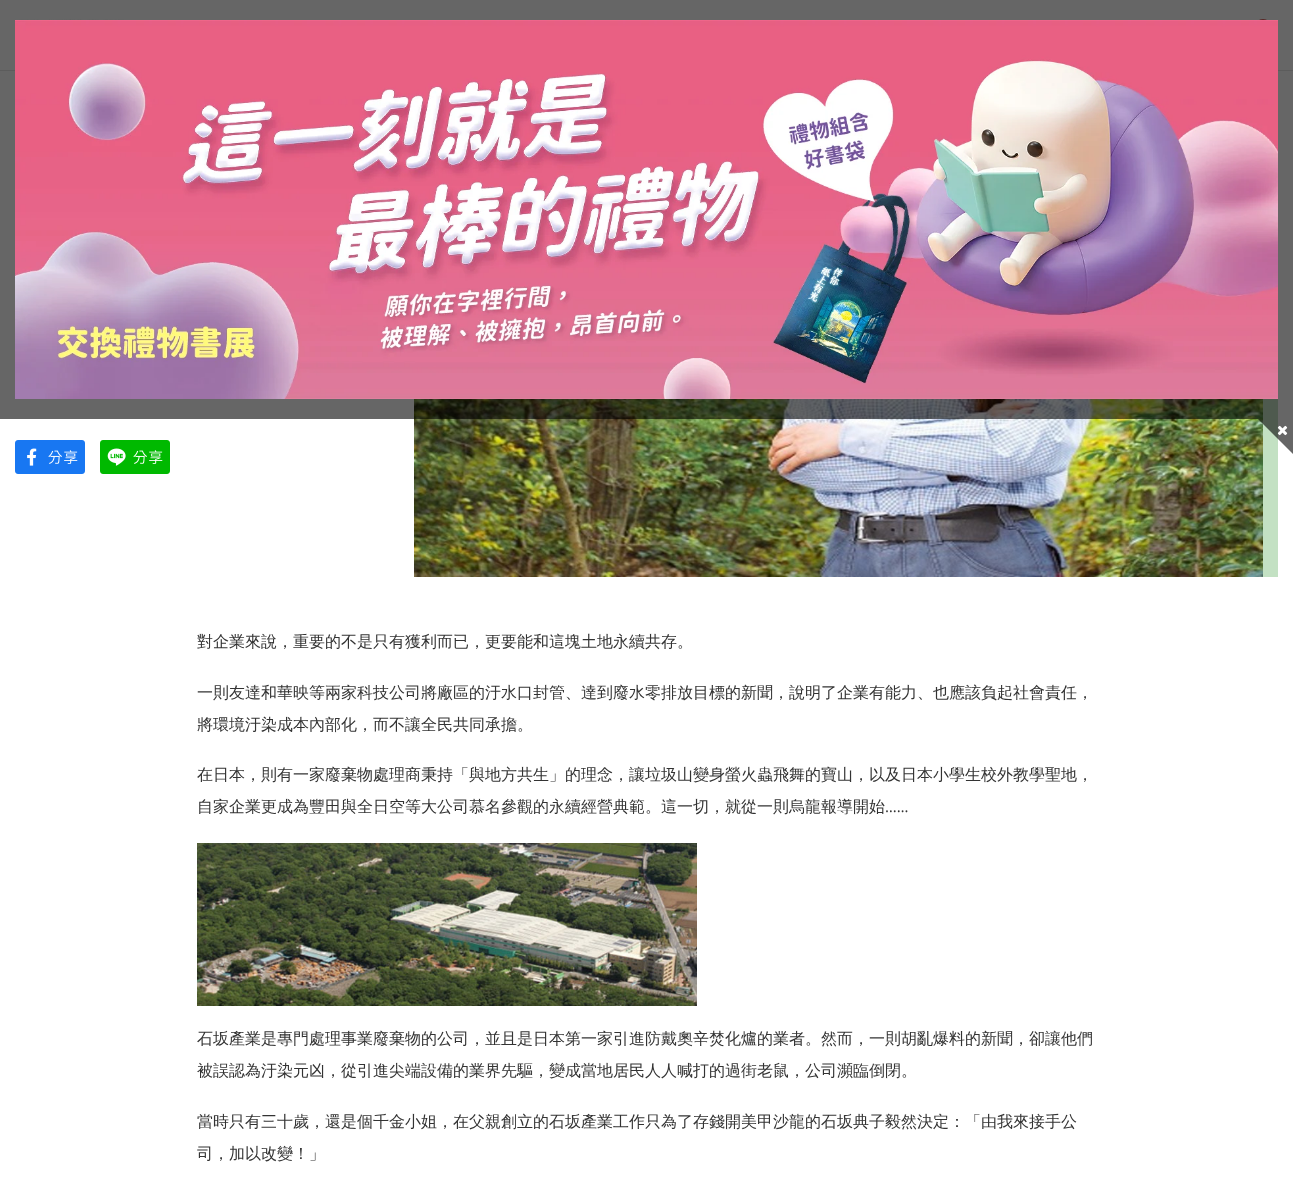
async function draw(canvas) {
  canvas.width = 1293
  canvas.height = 1197
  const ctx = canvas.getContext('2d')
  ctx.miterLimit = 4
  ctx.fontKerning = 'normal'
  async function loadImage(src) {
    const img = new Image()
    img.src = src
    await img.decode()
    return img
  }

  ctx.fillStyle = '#fff'
  ctx.fillRect(0, 0, 1293, 1197)
  ctx.drawImage(await loadImage('image2.png'), 15, 19, 170, 1)
  ctx.fillStyle = '#df5d5b'
  ctx.beginPath()
  ctx.arc(1263, 27, 8, 0, 2 * Math.PI)
  ctx.fill()
  ctx.fillStyle = '#e5e5e5'
  ctx.fillRect(0, 70, 1293, 1)
  ctx.fillStyle = '#c3e1c3'
  ctx.fillRect(1263, 399, 15, 178)
  ctx.drawImage(await loadImage('image5.png'), 414, 399, 849, 178)
  ctx.fillStyle = '#00000099'
  ctx.fillRect(0, 0, 1293, 419)
  ctx.drawImage(await loadImage('image0.png'), 15, 20, 1263, 379)
  ctx.beginPath()
  ctx.moveTo(1258, 419)
  ctx.lineTo(1293, 419)
  ctx.lineTo(1293, 454)
  ctx.closePath()
  ctx.fill()
  ctx.drawImage(await loadImage('image1.png'), 1277, 425, 11, 11)
  ctx.drawImage(await loadImage('image3.png'), 15, 440, 70, 34)
  ctx.drawImage(await loadImage('image4.png'), 100, 440, 70, 34)
  ctx.font = '500 16px WenQuanYi Zen Hei'
  ctx.fillStyle = '#333'
  ctx.fillText('對企業來說，重要的不是只有獲利而已，更要能和這塊土地永續共存。', 197, 647)
  ctx.fillText('一則友達和華映等兩家科技公司將廠區的汙水口封管、達到廢水零排放目標的新聞，說明了企業有能力、也應該負起社會責任，', 197, 698)
  ctx.fillText('將環境汙染成本內部化，而不讓全民共同承擔。', 197, 730)
  ctx.fillText('在日本，則有一家廢棄物處理商秉持「與地方共生」的理念，讓垃圾山變身螢火蟲飛舞的寶山，以及日本小學生校外教學聖地，', 197, 780)
  ctx.fillText('自家企業更成為豐田與全日空等大公司慕名參觀的永續經營典範。這一切，就從一則烏龍報導開始', 197, 812)
  ctx.font = '16px Khula'
  ctx.fillText('……', 885, 812)
  ctx.drawImage(await loadImage('image6.png'), 197, 843, 500, 163)
  ctx.font = '500 16px WenQuanYi Zen Hei'
  ctx.fillText('石坂產業是專門處理事業廢棄物的公司，並且是日本第一家引進防戴奧辛焚化爐的業者。然而，一則胡亂爆料的新聞，卻讓他們', 197, 1044)
  ctx.fillText('被誤認為汙染元凶，從引進尖端設備的業界先驅，變成當地居民人人喊打的過街老鼠，公司瀕臨倒閉。', 197, 1076)
  ctx.fillText('當時只有三十歲，還是個千金小姐，在父親創立的石坂產業工作只為了存錢開美甲沙龍的石坂典子毅然決定：「由我來接手公', 197, 1127)
  ctx.fillText('司，加以改變！」', 197, 1159)
}

draw(document.querySelector('canvas'))
